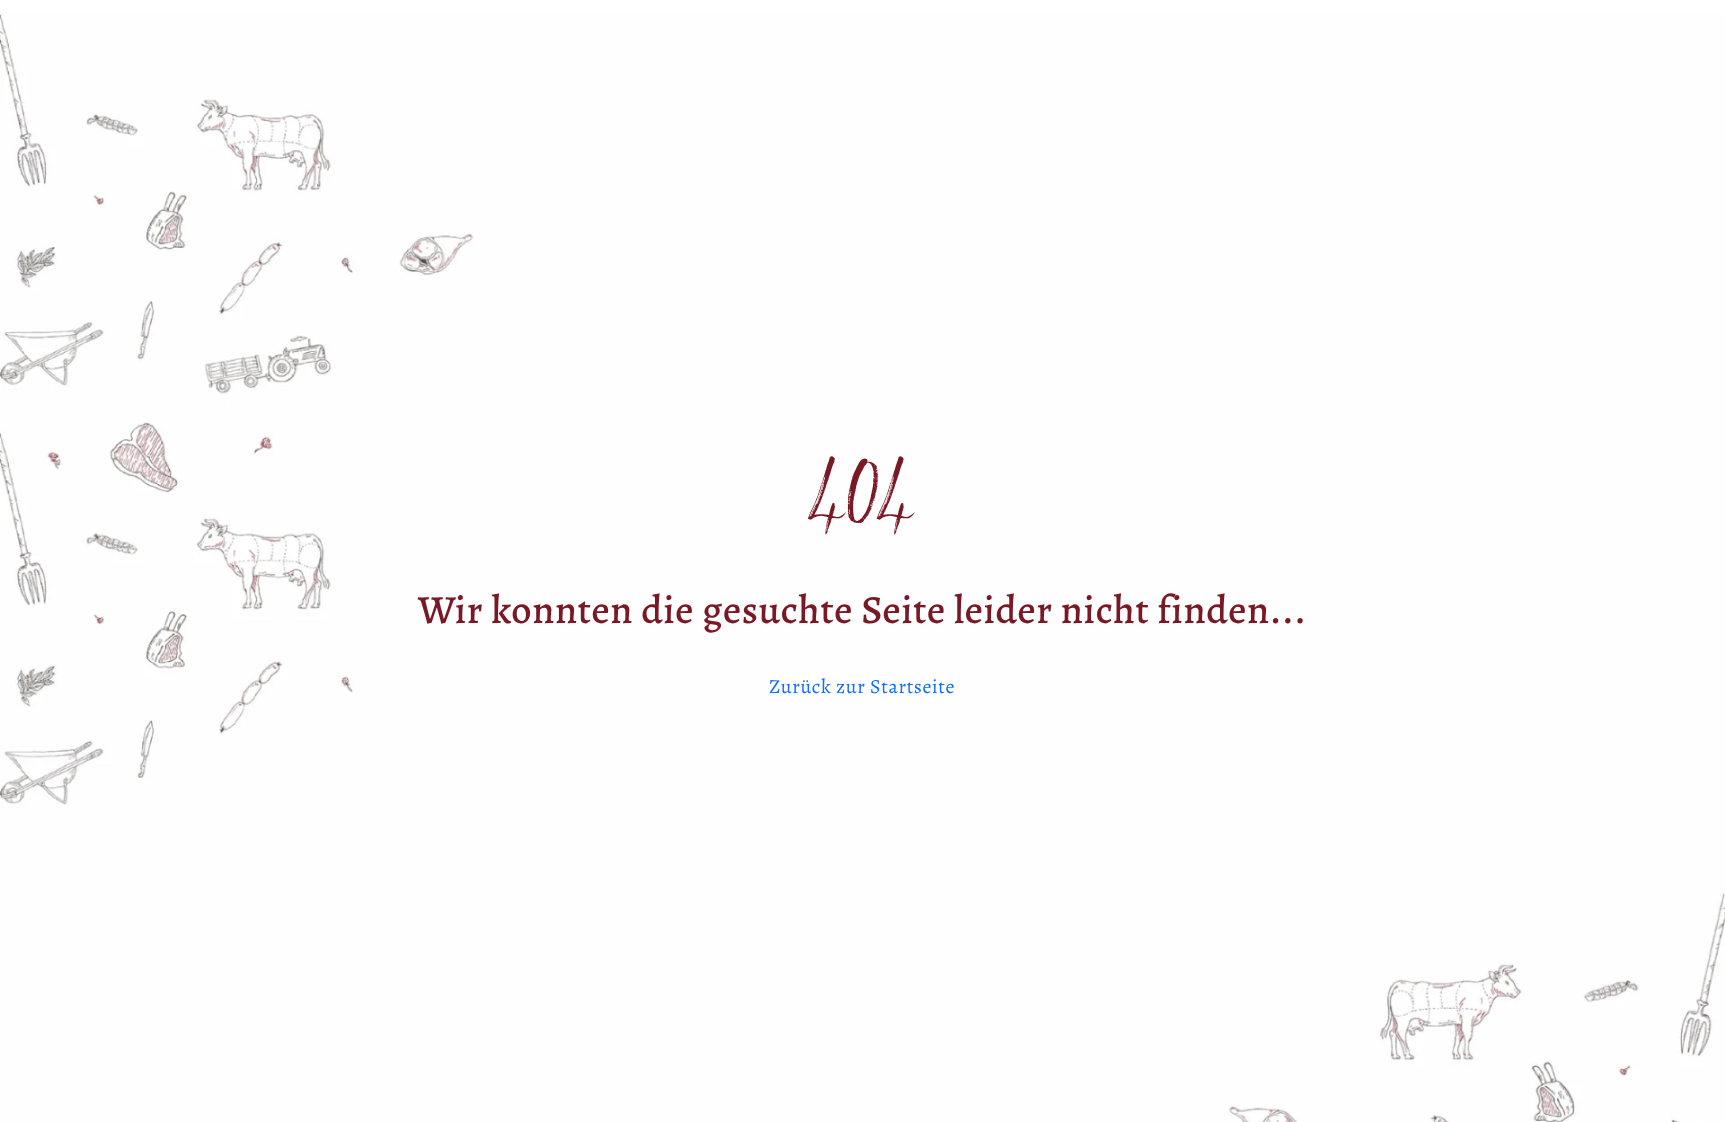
async function draw(canvas) {
  canvas.width = 1725
  canvas.height = 1122
  const ctx = canvas.getContext('2d')
  ctx.miterLimit = 4
  ctx.fontKerning = 'normal'
  async function loadImage(src) {
    const img = new Image()
    img.src = src
    await img.decode()
    return img
  }

  ctx.fillStyle = '#fff'
  ctx.fillRect(0, 0, 1725, 1122)
  ctx.drawImage(await loadImage('image0.png'), 0, 14, 1725, 1108)
  ctx.letterSpacing = '0.6px'
  ctx.font = '100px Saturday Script'
  ctx.fillStyle = '#791926'
  ctx.fillText('404', 810, 517)
  ctx.font = '500 40px Alegreya'
  ctx.fillText('Wir konnten die gesuchte Seite leider nicht finden...', 418, 623)
  ctx.font = '20px Alegreya'
  ctx.fillStyle = '#0d6efd'
  ctx.fillText('Zurück zur Startseite', 769, 693)
}

draw(document.querySelector('canvas'))
